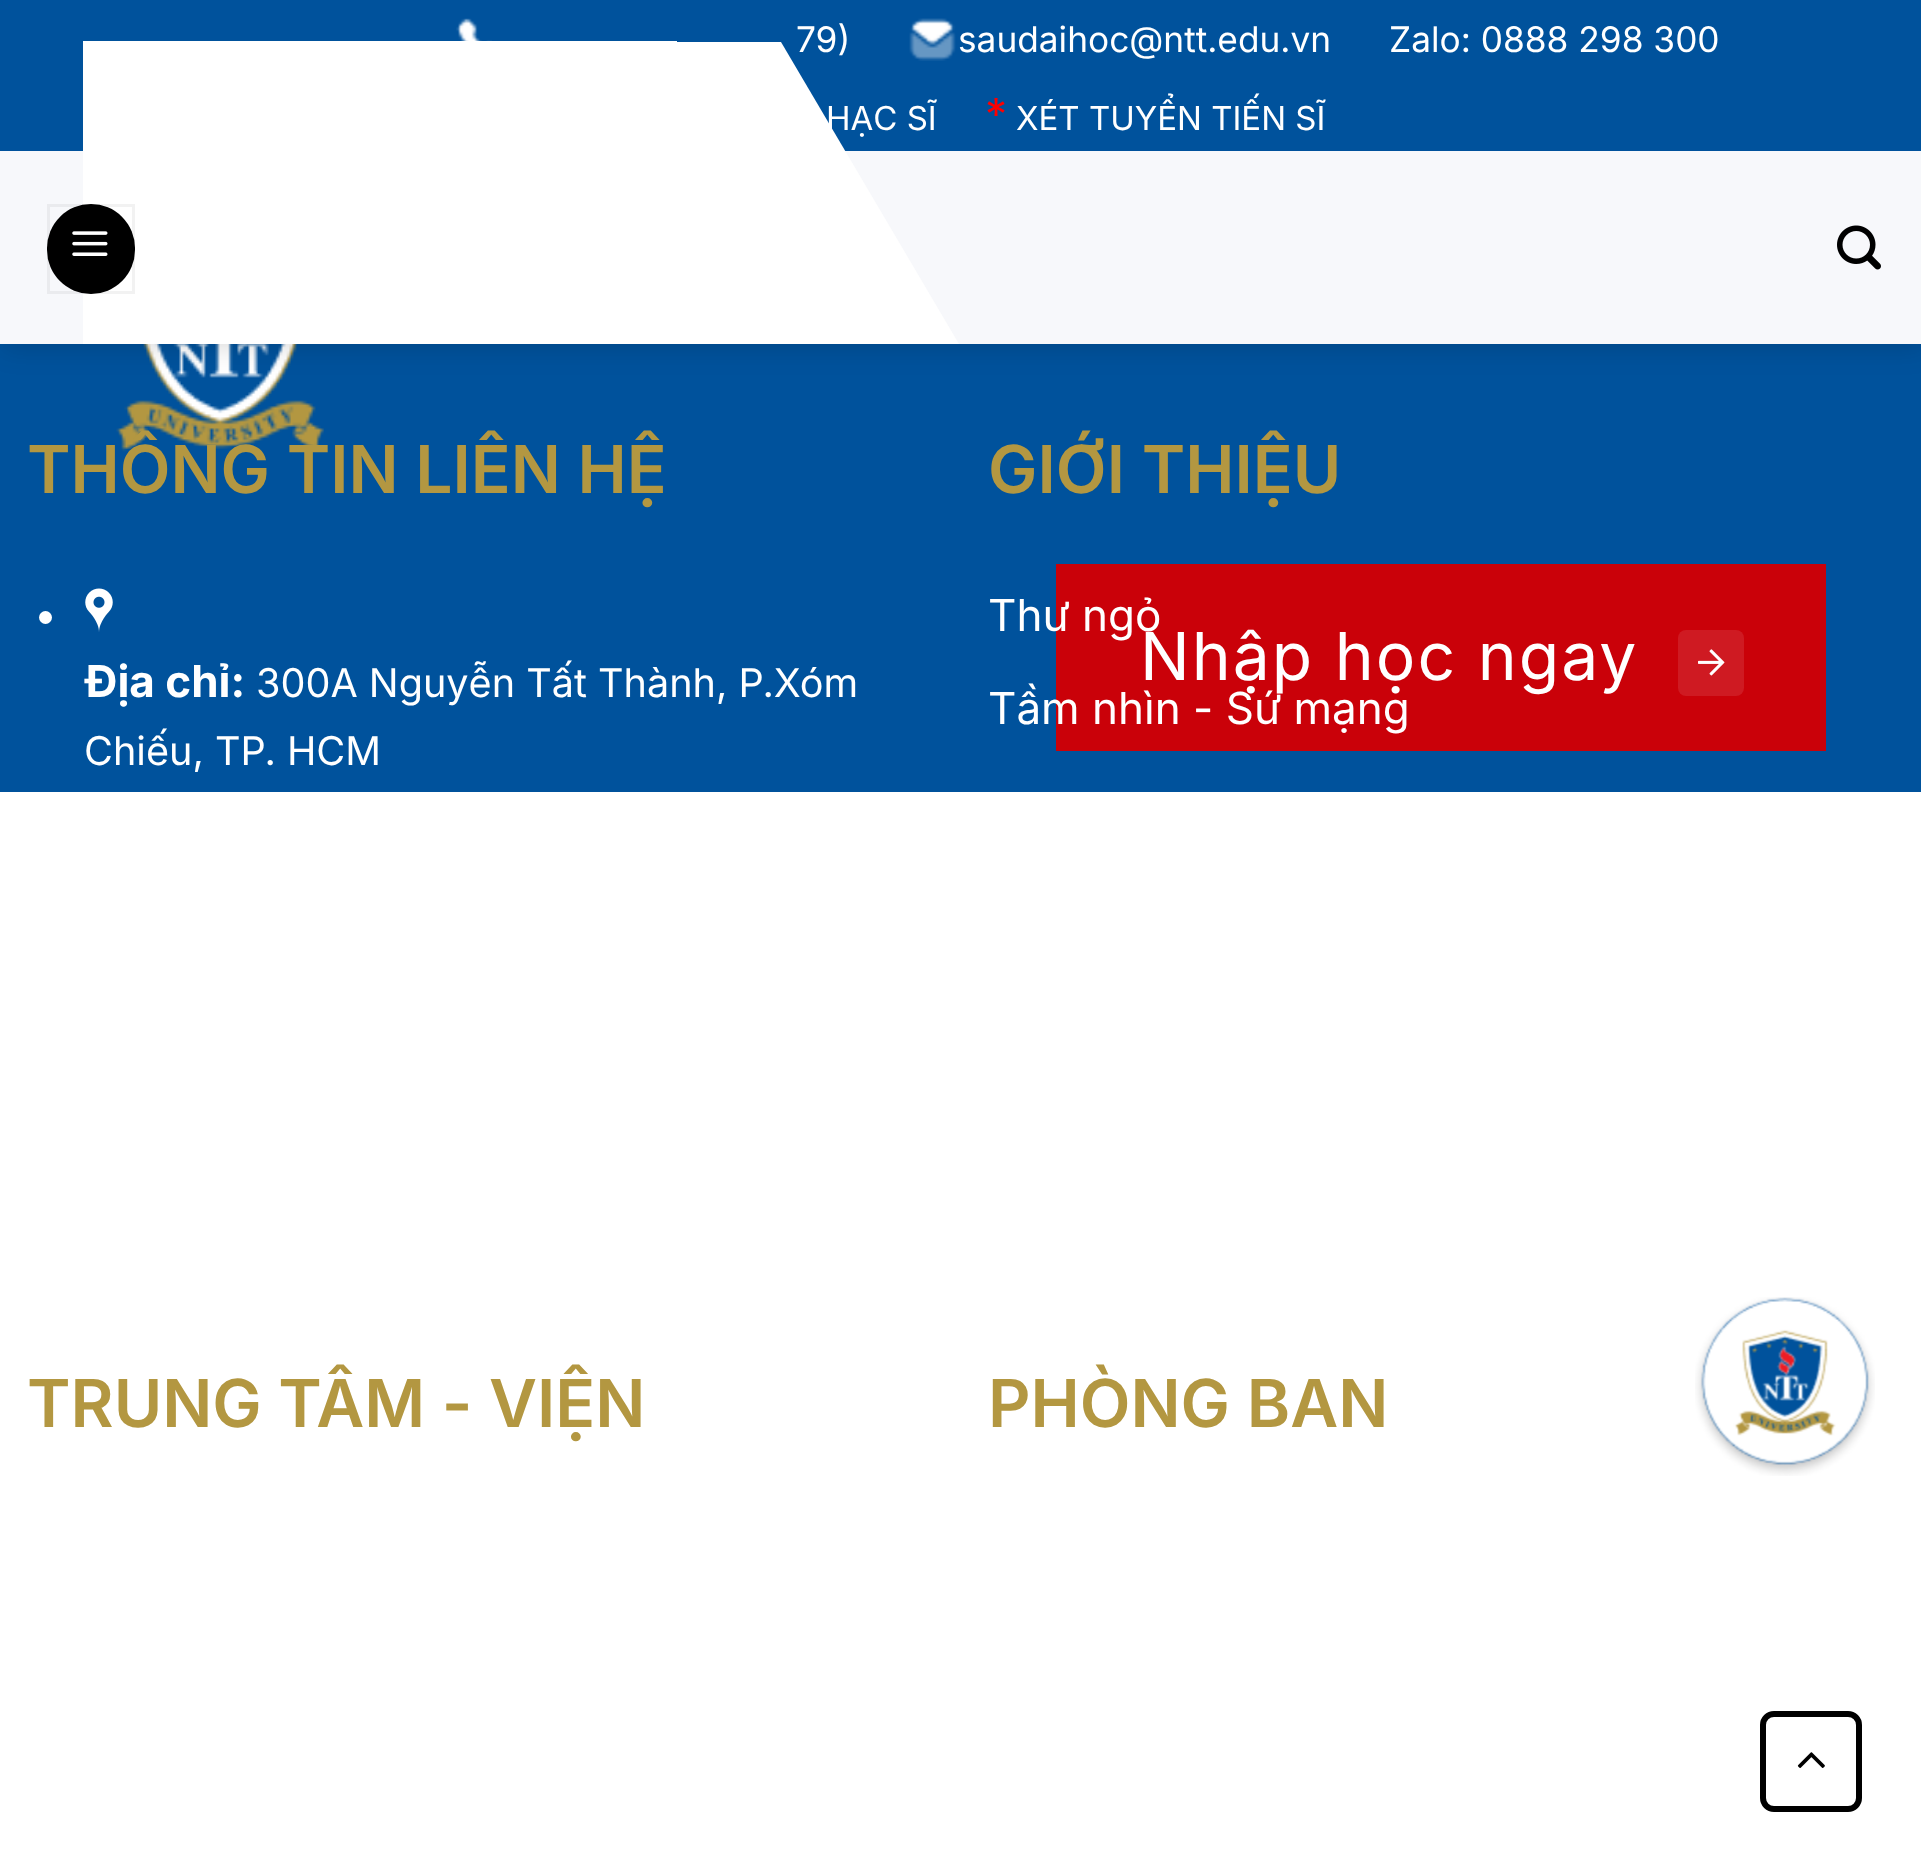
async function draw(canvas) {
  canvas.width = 1921
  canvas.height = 1865
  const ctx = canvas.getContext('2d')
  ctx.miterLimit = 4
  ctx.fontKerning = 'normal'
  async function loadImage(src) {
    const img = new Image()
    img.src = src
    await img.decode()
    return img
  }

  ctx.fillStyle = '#fff'
  ctx.fillRect(0, 0, 1921, 1865)
  ctx.fillStyle = '#00529c'
  ctx.fillRect(0, 344, 1921, 448)
  ctx.drawImage(await loadImage('image5.png'), 116, 344, 208, 108)
  ctx.fillStyle = '#00000026'
  ctx.filter = 'blur(14px)'
  ctx.beginPath()
  ctx.rect(3, 3, 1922, 344)
  ctx.fill()
  ctx.filter = 'none'
  ctx.fillStyle = '#f7f8fb'
  ctx.fillRect(0, 151, 1921, 193)
  ctx.fillStyle = '#00529c'
  ctx.fillRect(0, 0, 1921, 151)
  ctx.drawImage(await loadImage('image0.png'), 456, 18, 36, 23)
  ctx.font = '35.25px Inter'
  ctx.fillStyle = '#fff'
  ctx.fillText('79)', 796, 52)
  ctx.drawImage(await loadImage('image1.png'), 909, 18, 47, 43)
  ctx.fillText('saudaihoc@ntt.edu.vn', 958, 52)
  ctx.fillText('Zalo: 0888 298 300', 1389, 52)
  ctx.font = '33px Inter'
  ctx.fillText('HẠC SĨ', 826, 130)
  ctx.font = '44px Inter'
  ctx.fillStyle = '#f00'
  ctx.fillText('*', 985, 130)
  ctx.font = '33px Inter'
  ctx.fillStyle = '#fff'
  ctx.fillText('XÉT TUYỂN TIẾN SĨ', 1016, 130)
  ctx.beginPath()
  ctx.moveTo(660, 42)
  ctx.lineTo(660, 344)
  ctx.lineTo(959, 344)
  ctx.lineTo(781, 42)
  ctx.closePath()
  ctx.fill()
  ctx.fillRect(83, 41, 594, 303)
  ctx.fillStyle = '#000'
  ctx.beginPath()
  ctx.roundRect(47, 204, 88, 90, 44)
  ctx.fill()
  ctx.strokeStyle = '#0000000d'
  ctx.lineWidth = 3
  ctx.strokeRect(48.5, 205.5, 85, 87)
  ctx.drawImage(await loadImage('image2.png'), 72, 231, 36, 25)
  ctx.drawImage(await loadImage('image3.png'), 1837, 225, 44, 45)
  ctx.font = '600 66px Inter'
  ctx.fillStyle = '#b39741'
  ctx.fillText('THÔNG TIN LIÊN HỆ', 27, 493)
  ctx.fillStyle = '#fff'
  ctx.beginPath()
  ctx.arc(45.5, 617.5, 6.5, 0, 2 * Math.PI)
  ctx.fill()
  ctx.drawImage(await loadImage('image4.png'), 85, 588, 28, 44)
  ctx.font = 'bold 44px Inter'
  ctx.fillText('Địa chỉ:', 84, 697)
  ctx.font = '39.6px Inter'
  ctx.fillText('300A Nguyễn Tất Thành, P.Xóm', 256, 697)
  ctx.fillText('Chiếu, TP. HCM', 84, 765)
  ctx.font = '600 66px Inter'
  ctx.fillStyle = '#b39741'
  ctx.fillText('GIỚI THIỆU', 988, 493)
  ctx.fillStyle = '#ca0109'
  ctx.fillRect(1056, 564, 770, 187)
  ctx.font = '44px Inter'
  ctx.fillStyle = '#fff'
  ctx.fillText('Thư ngỏ', 988, 631)
  ctx.fillText('Tầm nhìn - Sứ mạng', 988, 724)
  ctx.font = '600 66px Inter'
  ctx.fillStyle = '#b39741'
  ctx.fillText('TRUNG TÂM - VIỆN', 27, 1427)
  ctx.fillText('PHÒNG BAN', 988, 1427)
  ctx.letterSpacing = '2px'
  ctx.font = '66px Inter'
  ctx.fillStyle = '#fff'
  ctx.fillText('Nhập học ngay', 1140, 680)
  ctx.fillStyle = '#cf1a22'
  ctx.beginPath()
  ctx.roundRect(1678, 630, 66, 66, 8)
  ctx.fill()
  ctx.drawImage(await loadImage('image6.png'), 1698, 649, 27, 27)
  ctx.beginPath()
  ctx.roundRect(1763, 1714, 96, 95, 11)
  ctx.strokeStyle = '#000'
  ctx.lineWidth = 6
  ctx.stroke()
  ctx.drawImage(await loadImage('image7.png'), 1797, 1752, 28, 16)
  ctx.drawImage(await loadImage('image8.png'), 1695, 1297, 180, 179)
}

draw(document.querySelector('canvas'))
